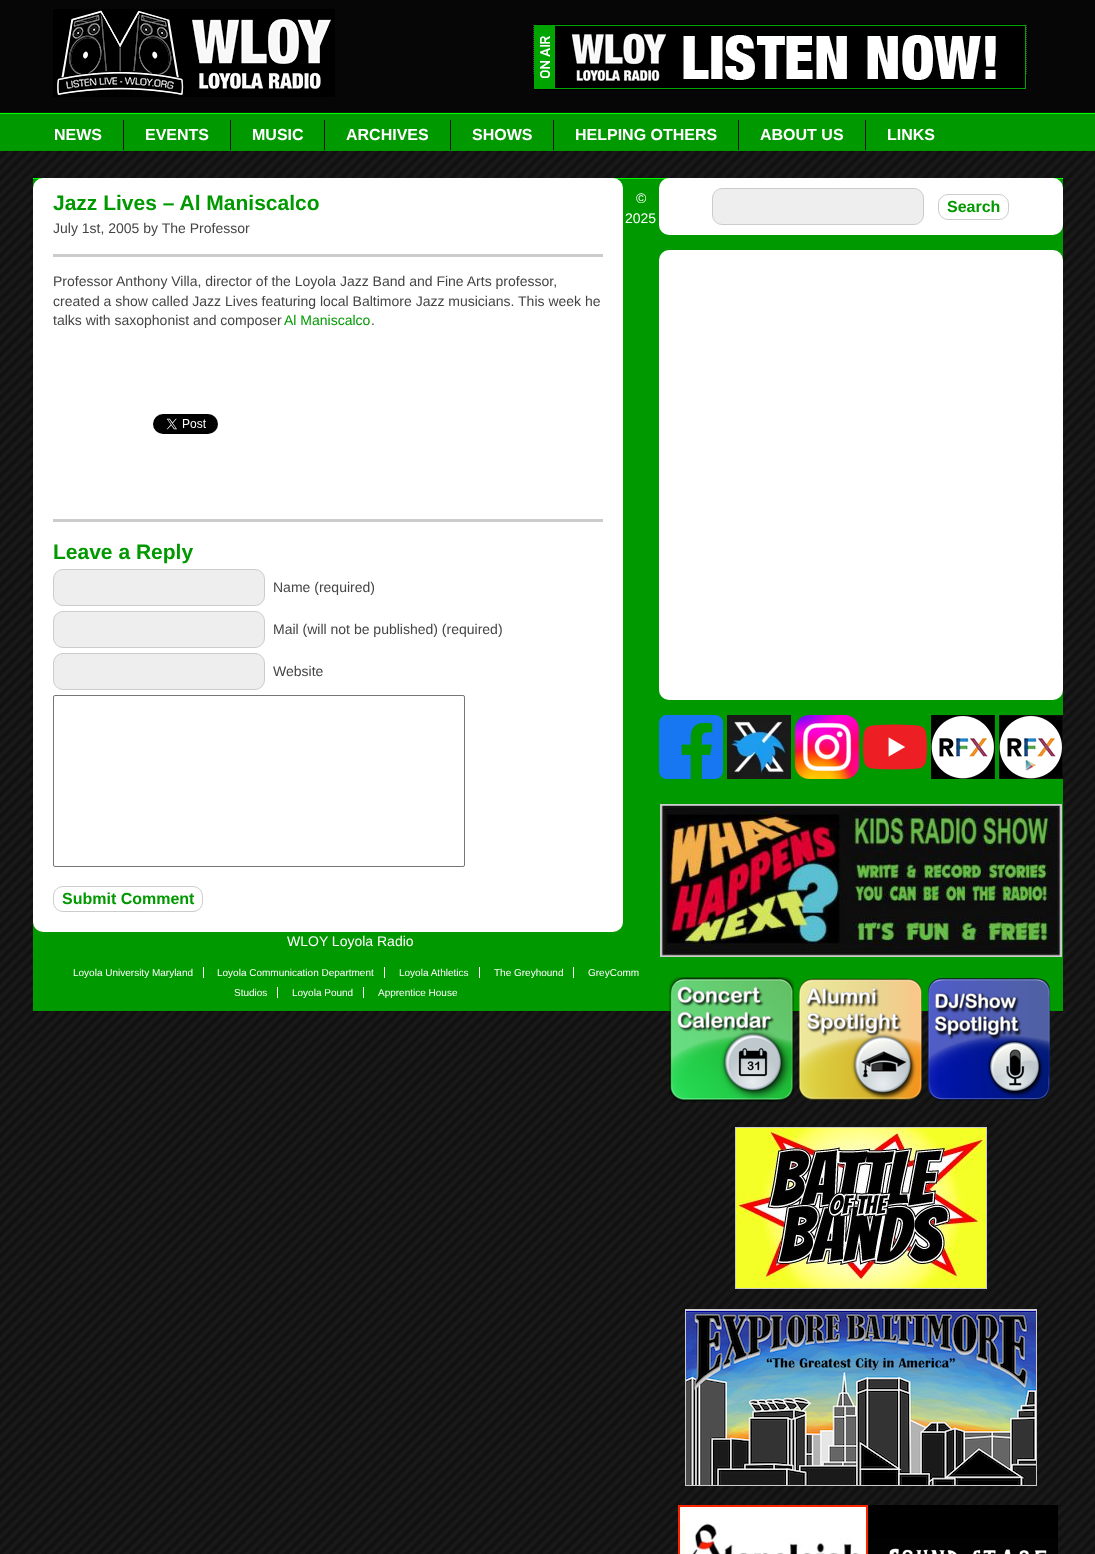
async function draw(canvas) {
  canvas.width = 1095
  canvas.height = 1554
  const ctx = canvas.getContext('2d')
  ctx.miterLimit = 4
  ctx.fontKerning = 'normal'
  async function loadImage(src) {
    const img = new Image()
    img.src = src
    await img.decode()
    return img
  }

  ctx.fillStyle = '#fff'
  ctx.fillRect(0, 0, 1095, 1554)
  ctx.drawImage(await loadImage('image0.png'), 0, 151, 1095, 1403)
  ctx.drawImage(await loadImage('image1.png'), 0, 0, 1095, 151)
  ctx.drawImage(await loadImage('image2.png'), 53, 9, 282, 88)
  ctx.drawImage(await loadImage('image3.png'), 533, 24, 494, 66)
  ctx.fillStyle = '#111'
  ctx.fillRect(123, 120, 1, 30)
  ctx.font = 'bold 16px Liberation Sans'
  ctx.fillStyle = '#fff'
  ctx.fillText('NEWS', 54, 140)
  ctx.fillStyle = '#111'
  ctx.fillRect(230, 120, 1, 30)
  ctx.fillStyle = '#fff'
  ctx.fillText('EVENTS', 145, 140)
  ctx.fillStyle = '#111'
  ctx.fillRect(324, 120, 1, 30)
  ctx.fillStyle = '#fff'
  ctx.fillText('MUSIC', 252, 140)
  ctx.fillStyle = '#111'
  ctx.fillRect(450, 120, 1, 30)
  ctx.fillStyle = '#fff'
  ctx.fillText('ARCHIVES', 346, 140)
  ctx.fillStyle = '#111'
  ctx.fillRect(553, 120, 1, 30)
  ctx.fillStyle = '#fff'
  ctx.fillText('SHOWS', 472, 140)
  ctx.fillStyle = '#111'
  ctx.fillRect(738, 120, 1, 30)
  ctx.fillStyle = '#fff'
  ctx.fillText('HELPING OTHERS', 575, 140)
  ctx.fillStyle = '#111'
  ctx.fillRect(865, 120, 1, 30)
  ctx.fillStyle = '#fff'
  ctx.fillText('ABOUT US', 760, 140)
  ctx.fillText('LINKS', 887, 140)
  ctx.fillStyle = '#090'
  ctx.fillRect(33, 179, 1030, 832)
  ctx.fillStyle = '#0f0'
  ctx.fillRect(33, 178, 1030, 1)
  ctx.font = '14px Liberation Sans'
  ctx.fillStyle = '#fff'
  ctx.fillText('©', 636, 203)
  ctx.fillText('2025', 625, 223)
  ctx.fillText('WLOY Loyola Radio', 287, 946)
  ctx.font = '10px Liberation Sans'
  ctx.fillText('Loyola University Maryland', 73, 976)
  ctx.fillRect(203, 967, 1, 11)
  ctx.fillText('Loyola Communication Department', 217, 976)
  ctx.fillRect(384, 967, 1, 11)
  ctx.fillText('Loyola Athletics', 399, 976)
  ctx.fillRect(479, 967, 1, 11)
  ctx.fillText('The Greyhound', 494, 976)
  ctx.fillRect(573, 967, 1, 11)
  ctx.fillText('GreyComm', 588, 976)
  ctx.fillText('Studios', 234, 996)
  ctx.fillRect(277, 987, 1, 11)
  ctx.fillText('Loyola Pound', 292, 996)
  ctx.fillRect(363, 987, 1, 11)
  ctx.fillText('Apprentice House', 378, 996)
  ctx.beginPath()
  ctx.roundRect(33, 178, 590, 754, 10)
  ctx.fill()
  ctx.font = 'bold 21px Liberation Sans'
  ctx.fillStyle = '#090'
  ctx.fillText('Jazz Lives – Al Maniscalco', 53, 210)
  ctx.font = '14px Liberation Sans'
  ctx.fillStyle = '#444'
  ctx.fillText('July 1st, 2005 by The Professor', 53, 233)
  ctx.fillStyle = '#ccc'
  ctx.fillRect(53, 254, 550, 3)
  ctx.fillStyle = '#444'
  ctx.fillText('Professor Anthony Villa, director of the Loyola Jazz Band and Fine Arts professor,', 53, 286)
  ctx.fillText('created a show called Jazz Lives featuring local Baltimore Jazz musicians. This week he', 53, 306)
  ctx.fillText('talks with saxophonist and composer', 53, 325)
  ctx.fillStyle = '#090'
  ctx.fillText('Al Maniscalco', 284, 325)
  ctx.fillStyle = '#444'
  ctx.fillText('.', 371, 325)
  ctx.drawImage(await loadImage('image4.png'), 153, 414, 65, 20)
  ctx.fillStyle = '#ccc'
  ctx.fillRect(53, 519, 550, 3)
  ctx.font = 'bold 21px Liberation Sans'
  ctx.fillStyle = '#090'
  ctx.fillText('Leave a Reply', 53, 559)
  ctx.fillStyle = '#eee'
  ctx.beginPath()
  ctx.roundRect(53.5, 569.5, 211, 36, 9.5)
  ctx.fill()
  ctx.strokeStyle = '#ccc'
  ctx.stroke()
  ctx.font = '14px Liberation Sans'
  ctx.fillStyle = '#444'
  ctx.fillText('Name (required)', 273, 592)
  ctx.fillStyle = '#eee'
  ctx.beginPath()
  ctx.roundRect(53.5, 611.5, 211, 36, 9.5)
  ctx.fill()
  ctx.stroke()
  ctx.fillStyle = '#444'
  ctx.fillText('Mail (will not be published) (required)', 273, 634)
  ctx.fillStyle = '#eee'
  ctx.beginPath()
  ctx.roundRect(53.5, 653.5, 211, 36, 9.5)
  ctx.fill()
  ctx.stroke()
  ctx.fillStyle = '#444'
  ctx.fillText('Website', 273, 676)
  ctx.beginPath()
  ctx.roundRect(53.5, 695.5, 411, 171, 1.5)
  ctx.strokeStyle = '#767676'
  ctx.stroke()
  ctx.beginPath()
  ctx.roundRect(53.5, 886.5, 149, 25, 9.5)
  ctx.strokeStyle = '#ccc'
  ctx.stroke()
  ctx.font = 'bold 16px Liberation Sans'
  ctx.fillStyle = '#090'
  ctx.fillText('Submit Comment', 62, 904)
  ctx.fillStyle = '#fff'
  ctx.beginPath()
  ctx.roundRect(659, 178, 404, 57, 10)
  ctx.fill()
  ctx.fillStyle = '#eee'
  ctx.beginPath()
  ctx.roundRect(712.5, 188.5, 211, 36, 9.5)
  ctx.fill()
  ctx.stroke()
  ctx.beginPath()
  ctx.roundRect(938.5, 194.5, 70, 25, 9.5)
  ctx.stroke()
  ctx.fillStyle = '#090'
  ctx.fillText('Search', 947, 212)
  ctx.fillStyle = '#fff'
  ctx.beginPath()
  ctx.roundRect(659, 250, 404, 450, 10)
  ctx.fill()
  ctx.drawImage(await loadImage('image5.png'), 659, 715, 64, 64)
  ctx.drawImage(await loadImage('image6.png'), 727, 715, 64, 64)
  ctx.drawImage(await loadImage('image7.png'), 795, 715, 64, 64)
  ctx.drawImage(await loadImage('image8.png'), 863, 724, 64, 46)
  ctx.drawImage(await loadImage('image9.png'), 931, 715, 64, 64)
  ctx.drawImage(await loadImage('image10.png'), 999, 715, 64, 64)
  ctx.strokeRect(660.5, 804.5, 401, 152)
  ctx.drawImage(await loadImage('image11.png'), 661, 805, 400, 151)
  ctx.drawImage(await loadImage('image12.png'), 669, 977, 125, 125)
  ctx.drawImage(await loadImage('image13.png'), 799, 978, 123, 123)
  ctx.drawImage(await loadImage('image14.png'), 928, 977, 123, 124)
  ctx.strokeRect(735.5, 1127.5, 251, 161)
  ctx.drawImage(await loadImage('image15.png'), 736, 1128, 250, 160)
  ctx.strokeRect(685.5, 1309.5, 351, 176)
  ctx.drawImage(await loadImage('image16.png'), 686, 1310, 350, 175)
  ctx.drawImage(await loadImage('image17.png'), 678, 1505, 190, 49)
  ctx.drawImage(await loadImage('image18.png'), 868, 1505, 190, 49)
}

draw(document.querySelector('canvas'))
